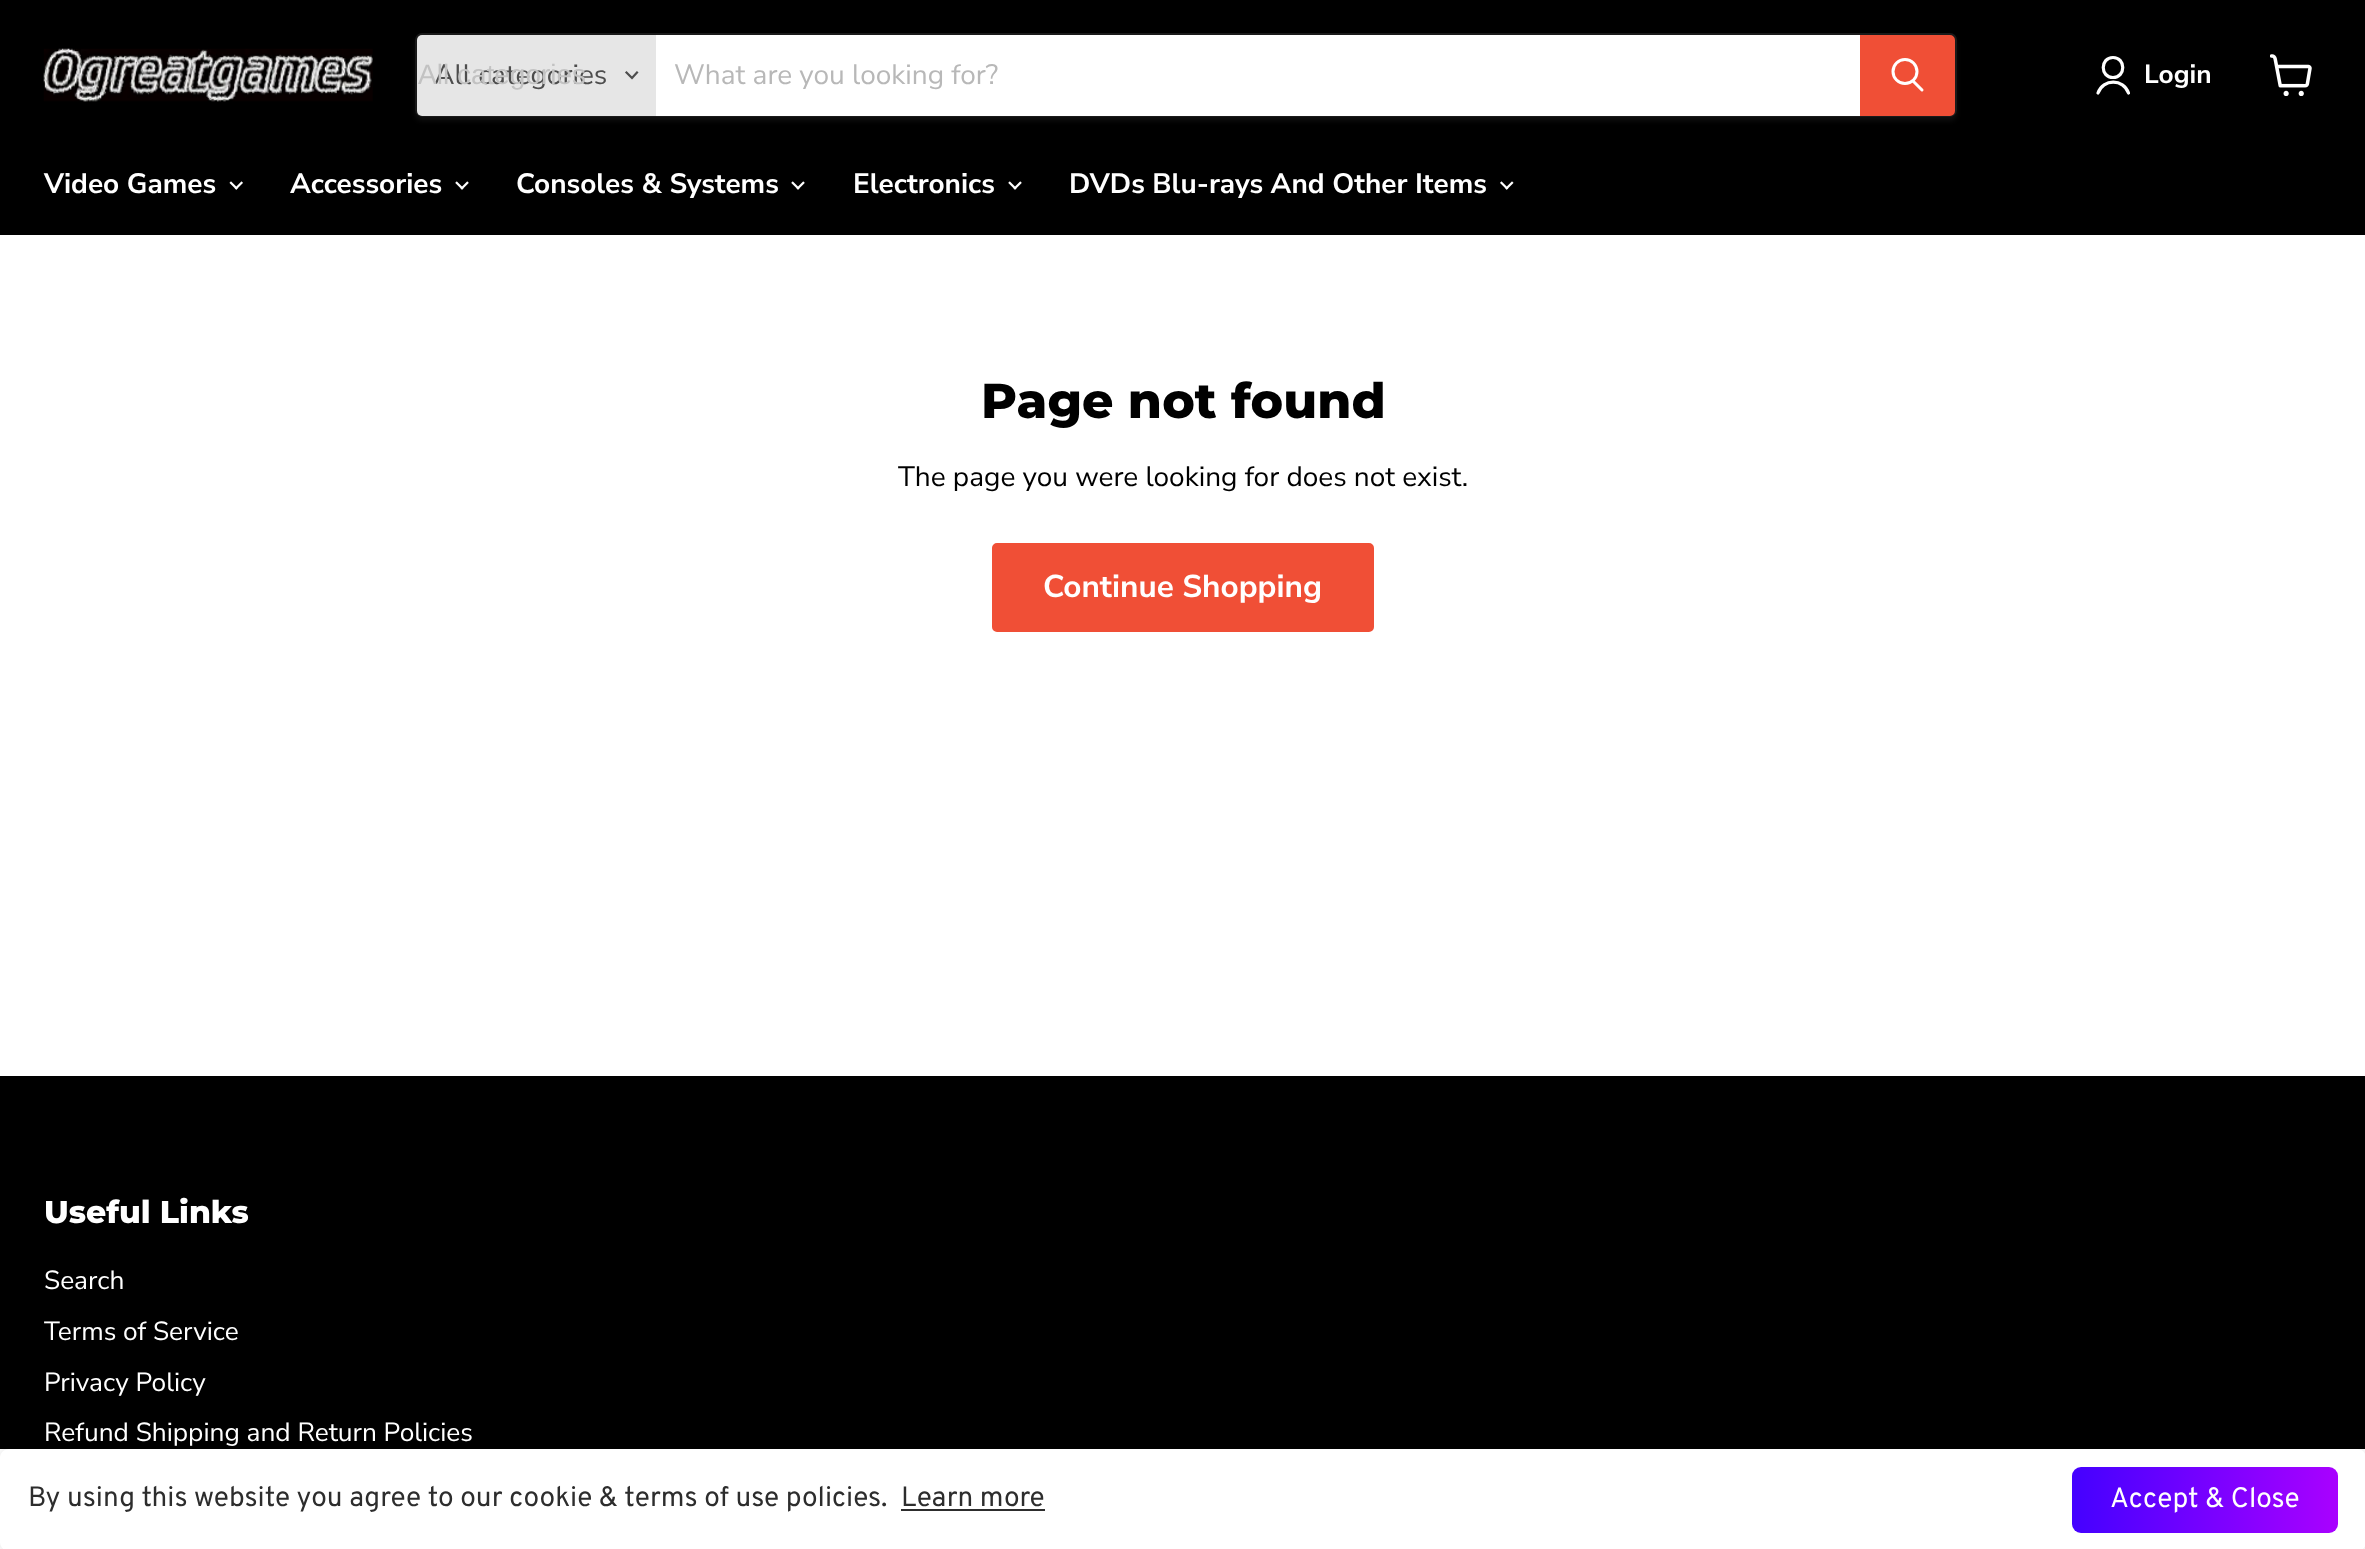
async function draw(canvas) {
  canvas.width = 2365
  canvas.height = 1549
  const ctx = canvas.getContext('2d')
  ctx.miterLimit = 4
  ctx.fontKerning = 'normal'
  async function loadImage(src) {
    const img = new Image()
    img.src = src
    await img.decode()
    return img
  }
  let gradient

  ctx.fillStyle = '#fff'
  ctx.fillRect(0, 0, 2365, 1549)
  ctx.fillStyle = '#000'
  ctx.fillRect(0, 0, 2365, 235)
  ctx.drawImage(await loadImage('image0.png'), 43, 48, 330, 54)
  ctx.save()
  ctx.beginPath()
  ctx.moveTo(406, 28)
  ctx.lineTo(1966, 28)
  ctx.lineTo(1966, 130)
  ctx.lineTo(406, 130)
  ctx.closePath()
  ctx.moveTo(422, 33)
  ctx.lineTo(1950, 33)
  ctx.bezierCurveTo(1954, 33, 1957, 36, 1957, 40)
  ctx.lineTo(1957, 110)
  ctx.bezierCurveTo(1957, 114, 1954, 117, 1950, 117)
  ctx.lineTo(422, 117)
  ctx.bezierCurveTo(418, 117, 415, 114, 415, 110)
  ctx.lineTo(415, 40)
  ctx.bezierCurveTo(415, 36, 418, 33, 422, 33)
  ctx.closePath()
  ctx.clip('evenodd')
  ctx.fillStyle = '#8080801c'
  ctx.filter = 'blur(2.5px)'
  ctx.beginPath()
  ctx.roundRect(415, 37, 1542, 84, 7)
  ctx.fill()
  ctx.filter = 'none'
  ctx.restore()
  ctx.beginPath()
  ctx.roundRect(416, 34, 1540, 82, 6)
  ctx.strokeStyle = '#80808033'
  ctx.lineWidth = 2
  ctx.stroke()
  ctx.fillStyle = '#e6e6e6'
  ctx.beginPath()
  ctx.roundRect(417, 35, 239, 81, [5, 0, 0, 5])
  ctx.fill()
  ctx.font = '28px Nunito Sans'
  ctx.fillStyle = '#4d4d4d'
  ctx.fillText('All categories', 434, 84)
  ctx.font = '28px Liberation Sans'
  ctx.fillStyle = '#c2c2c2'
  ctx.fillText('All categories', 418, 84)
  ctx.beginPath()
  ctx.moveTo(632, 78)
  ctx.lineTo(637, 72.5)
  ctx.moveTo(632, 78)
  ctx.lineTo(626.5, 72.5)
  ctx.strokeStyle = '#4d4d4d'
  ctx.lineWidth = 2.2
  ctx.lineCap = 'square'
  ctx.stroke()
  ctx.fillStyle = '#fff'
  ctx.fillRect(656, 35, 1204, 81)
  ctx.font = '28px Nunito Sans'
  ctx.fillStyle = '#b8b8b8'
  ctx.fillText('What are you looking for?', 674, 84)
  ctx.fillStyle = '#f04f36'
  ctx.beginPath()
  ctx.roundRect(1861, 36, 93, 79, [0, 4, 4, 0])
  ctx.fill()
  ctx.strokeStyle = '#f04f36'
  ctx.lineWidth = 2
  ctx.stroke()
  ctx.beginPath()
  ctx.moveTo(1922, 90)
  ctx.lineTo(1913.5, 81.5)
  ctx.strokeStyle = '#fff'
  ctx.lineWidth = 3
  ctx.lineCap = 'round'
  ctx.stroke()
  ctx.beginPath()
  ctx.arc(1905, 71.5, 12, 0, 2 * Math.PI)
  ctx.stroke()
  ctx.beginPath()
  ctx.moveTo(2113, 77.5)
  ctx.bezierCurveTo(2126, 77.5, 2126, 57.5, 2113, 57.5)
  ctx.bezierCurveTo(2100, 57.5, 2100, 77.5, 2113, 77.5)
  ctx.closePath()
  ctx.moveTo(2128.5, 93)
  ctx.bezierCurveTo(2123.5, 78.5, 2103, 78.5, 2098, 93)
  ctx.lineWidth = 3.2
  ctx.lineJoin = 'round'
  ctx.stroke()
  ctx.font = 'bold 26.25px Nunito Sans'
  ctx.fillStyle = '#fff'
  ctx.fillText('Login', 2144, 83)
  ctx.drawImage(await loadImage('image1.png'), 2270, 54, 42, 42)
  ctx.font = 'bold 28px Nunito Sans'
  ctx.fillText('Video Games', 44, 193)
  ctx.drawImage(await loadImage('image2.png'), 229, 181, 14, 9)
  ctx.fillText('Accessories', 290, 193)
  ctx.drawImage(await loadImage('image3.png'), 455, 181, 14, 9)
  ctx.fillText('Consoles & Systems', 516, 193)
  ctx.drawImage(await loadImage('image3.png'), 791, 181, 14, 9)
  ctx.fillText('Electronics', 853, 193)
  ctx.drawImage(await loadImage('image3.png'), 1008, 181, 14, 9)
  ctx.fillText('DVDs Blu-rays And Other Items', 1069, 193)
  ctx.drawImage(await loadImage('image4.png'), 1500, 181, 14, 9)
  ctx.font = '800 49px Montserrat'
  ctx.fillStyle = '#000'
  ctx.fillText('Page not found', 981, 418)
  ctx.font = '28px Nunito Sans'
  ctx.fillText('The page you were looking for does not exist.', 898, 486)
  ctx.fillStyle = '#f04f36'
  ctx.beginPath()
  ctx.roundRect(993, 544, 380, 87, 4)
  ctx.fill()
  ctx.strokeStyle = '#f04f36'
  ctx.lineWidth = 2
  ctx.lineJoin = 'miter'
  ctx.stroke()
  ctx.font = 'bold 31.5px Nunito Sans'
  ctx.fillStyle = '#fff'
  ctx.fillText('Continue Shopping', 1043, 597)
  ctx.fillStyle = '#000'
  ctx.fillRect(0, 1076, 2365, 373)
  ctx.font = '800 31.5px Montserrat'
  ctx.fillStyle = '#fff'
  ctx.fillText('Useful Links', 44, 1223)
  ctx.font = '26.25px Nunito Sans'
  ctx.fillText('Search', 44, 1289)
  ctx.fillText('Terms of Service', 44, 1340)
  ctx.fillText('Privacy Policy', 44, 1391)
  ctx.fillText('Refund Shipping and Return Policies', 44, 1441)
  ctx.save()
  ctx.beginPath()
  ctx.moveTo(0, 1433)
  ctx.lineTo(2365, 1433)
  ctx.lineTo(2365, 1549)
  ctx.lineTo(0, 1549)
  ctx.closePath()
  ctx.moveTo(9, 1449)
  ctx.lineTo(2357, 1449)
  ctx.bezierCurveTo(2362, 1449, 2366, 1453, 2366, 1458)
  ctx.lineTo(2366, 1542)
  ctx.bezierCurveTo(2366, 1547, 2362, 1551, 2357, 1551)
  ctx.lineTo(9, 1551)
  ctx.bezierCurveTo(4, 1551, 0, 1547, 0, 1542)
  ctx.lineTo(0, 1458)
  ctx.bezierCurveTo(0, 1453, 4, 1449, 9, 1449)
  ctx.closePath()
  ctx.clip('evenodd')
  ctx.fillStyle = '#0000001f'
  ctx.filter = 'blur(5px)'
  ctx.beginPath()
  ctx.roundRect(0, 1449, 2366, 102, 9)
  ctx.fill()
  ctx.filter = 'none'
  ctx.restore()
  ctx.font = '28px Overpass'
  ctx.fillStyle = '#2d2d2d'
  ctx.fillText('By using this website you agree to our cookie & terms of use policies.', 28, 1506)
  ctx.fillText('Learn more', 901, 1506)
  ctx.fillRect(901, 1509, 144, 2)
  gradient = ctx.createLinearGradient(2072, 1500, 2338, 1500)
  gradient.addColorStop(0, '#4401ff')
  gradient.addColorStop(1, '#a901ff')
  ctx.fillStyle = gradient
  ctx.beginPath()
  ctx.roundRect(2072, 1467, 266, 66, 9)
  ctx.fill()
  ctx.fillStyle = '#fff'
  ctx.fillText('Accept & Close', 2110, 1507)
}

draw(document.querySelector('canvas'))
